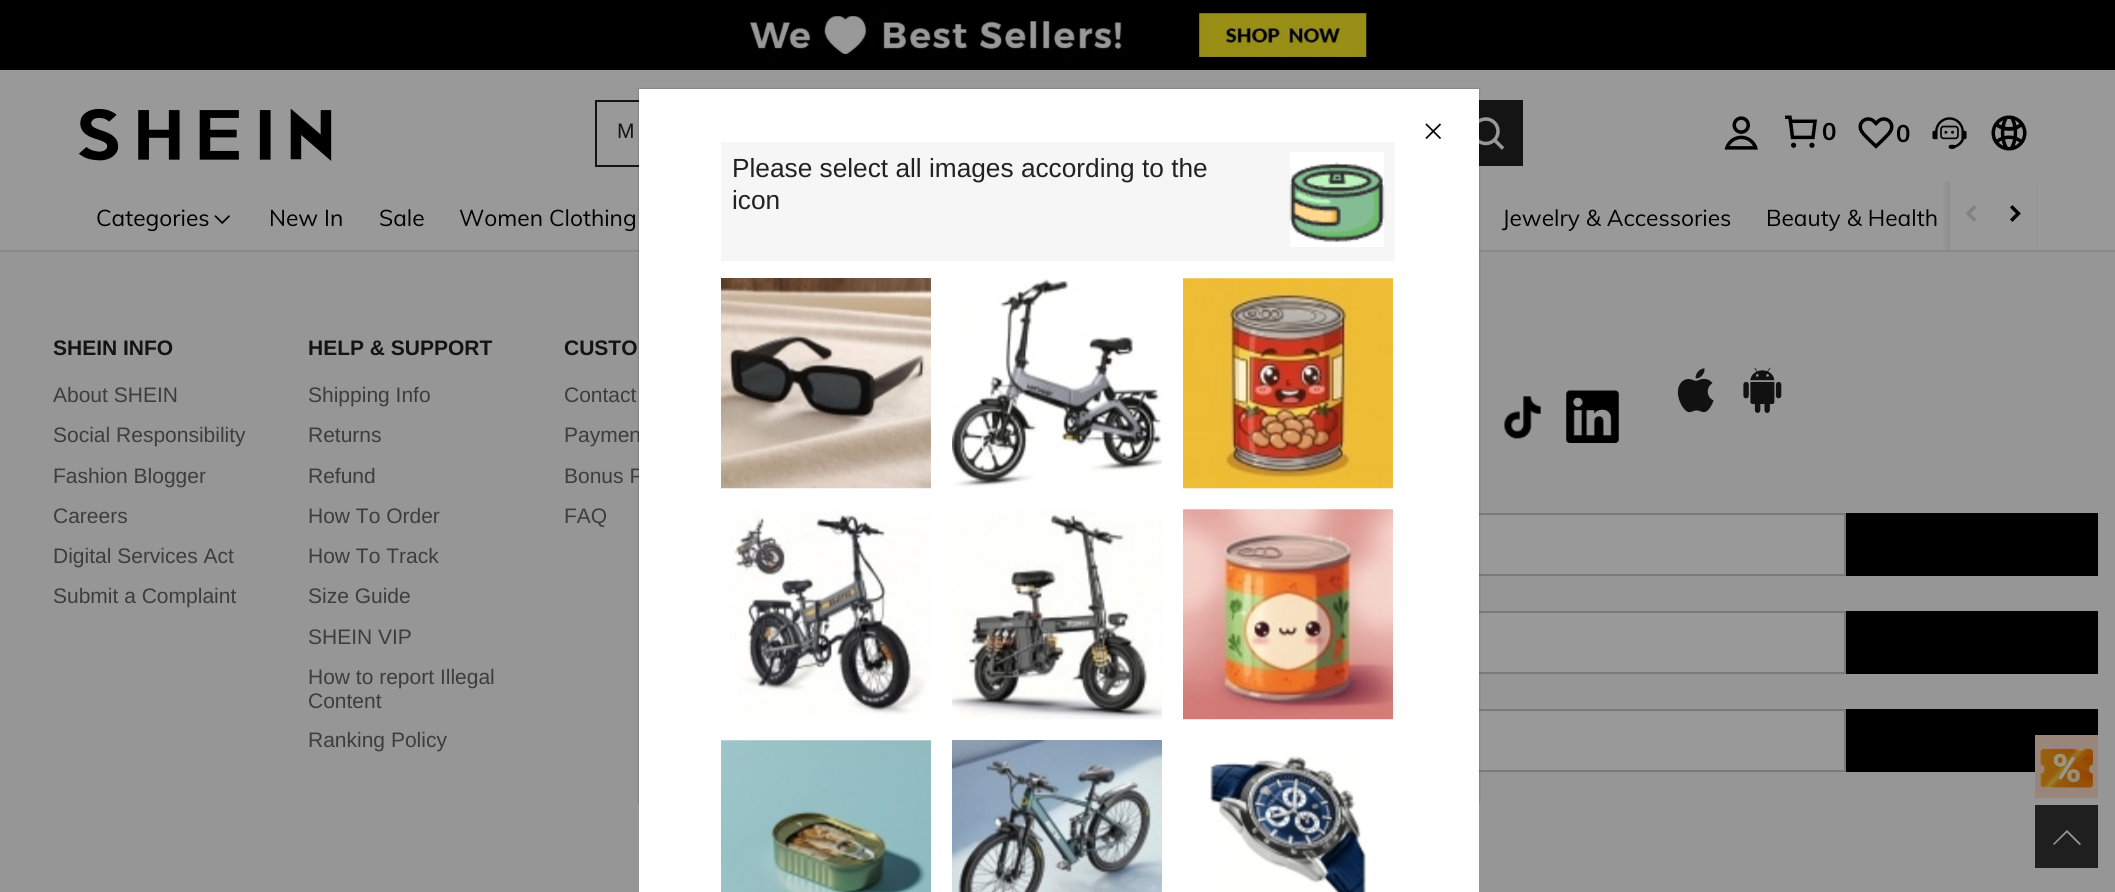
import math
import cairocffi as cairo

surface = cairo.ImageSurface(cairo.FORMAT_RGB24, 2115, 892)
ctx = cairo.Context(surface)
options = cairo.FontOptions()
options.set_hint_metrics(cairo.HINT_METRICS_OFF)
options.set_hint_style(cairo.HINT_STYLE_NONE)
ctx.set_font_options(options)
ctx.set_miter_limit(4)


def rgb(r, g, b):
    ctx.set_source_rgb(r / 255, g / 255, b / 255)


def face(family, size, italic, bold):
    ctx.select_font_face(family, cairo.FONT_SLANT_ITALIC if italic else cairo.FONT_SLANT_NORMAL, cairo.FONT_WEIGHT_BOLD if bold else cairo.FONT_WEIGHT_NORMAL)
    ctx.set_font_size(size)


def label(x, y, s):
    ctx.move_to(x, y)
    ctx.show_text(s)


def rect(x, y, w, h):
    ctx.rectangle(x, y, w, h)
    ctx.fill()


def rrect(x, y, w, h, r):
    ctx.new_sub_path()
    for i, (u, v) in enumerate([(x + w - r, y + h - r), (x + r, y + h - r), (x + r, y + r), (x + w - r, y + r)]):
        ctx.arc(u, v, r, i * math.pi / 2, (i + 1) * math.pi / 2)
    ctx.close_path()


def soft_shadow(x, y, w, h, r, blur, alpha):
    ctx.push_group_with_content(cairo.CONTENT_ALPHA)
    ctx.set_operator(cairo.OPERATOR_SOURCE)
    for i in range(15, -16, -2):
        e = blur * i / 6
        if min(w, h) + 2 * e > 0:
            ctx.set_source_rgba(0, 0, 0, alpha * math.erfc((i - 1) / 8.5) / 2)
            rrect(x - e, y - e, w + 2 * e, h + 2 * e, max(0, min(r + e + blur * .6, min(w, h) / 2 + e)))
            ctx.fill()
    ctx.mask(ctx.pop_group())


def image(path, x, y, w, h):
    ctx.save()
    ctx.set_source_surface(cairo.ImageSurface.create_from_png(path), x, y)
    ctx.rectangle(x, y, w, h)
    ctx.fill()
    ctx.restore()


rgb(153, 153, 153)
ctx.paint()
image('image0.png', 0, 0, 2115, 70)
image('image1.png', 79, 109, 253, 52)
rgb(20, 20, 20)
rect(595, 100, 44, 2)
rect(595, 165, 44, 2)
rect(595, 100, 2, 66)
face('Liberation Sans', 21, 0, 0)
label(617, 138, 'M')
rect(1479, 100, 44, 66)
image('image2.png', 1479, 117, 26, 33)
image('image3.png', 1724, 116, 34, 34)
image('image4.png', 1785, 115, 32, 33)
face('Muli', 24, 0, 1)
rgb(0, 0, 0)
label(1822, 140, '0')
image('image5.png', 1858, 117, 36, 32)
label(1896, 142, '0')
image('image6.png', 1932, 117, 35, 32)
image('image7.png', 1991, 115, 36, 36)
rgb(137, 137, 137)
rect(0, 250, 2115, 2)
face('Muli', 22.75, 0, 0)
rgb(0, 0, 0)
label(96, 226, 'Categories')
image('image8.png', 214, 215, 16, 9)
label(269, 226, 'New In')
label(379, 226, 'Sale')
label(459, 226, 'Women Clothing')
label(1502, 226, 'Jewelry & Accessories')
label(1766, 226, 'Beauty & Health')
rgb(150, 150, 150)
rect(0, 252, 2115, 640)
ctx.save()
ctx.rectangle(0, 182, 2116, 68)
ctx.clip()
rgb(0, 0, 0)
soft_shadow(1946, 182, 88, 68, 0, 2.5, 0.08)
ctx.restore()
rgb(153, 153, 153)
rect(1950, 182, 86, 68)
image('image9.png', 1965, 205, 12, 17)
image('image10.png', 2010, 205, 11, 17)
face('Liberation Sans', 21, 0, 1)
rgb(20, 20, 20)
label(53, 355, 'SHEIN INFO')
face('Liberation Sans', 21, 0, 0)
rgb(61, 61, 61)
label(53, 402, 'About SHEIN')
label(53, 442, 'Social Responsibility')
label(53, 483, 'Fashion Blogger')
label(53, 523, 'Careers')
label(53, 563, 'Digital Services Act')
label(53, 603, 'Submit a Complaint')
face('Liberation Sans', 21, 0, 1)
rgb(20, 20, 20)
label(308, 355, 'HELP & SUPPORT')
face('Liberation Sans', 21, 0, 0)
rgb(61, 61, 61)
label(308, 402, 'Shipping Info')
label(308, 442, 'Returns')
label(308, 483, 'Refund')
label(308, 523, 'How To Order')
label(308, 563, 'How To Track')
label(308, 603, 'Size Guide')
label(308, 644, 'SHEIN VIP')
label(308, 684, 'How to report Illegal')
label(308, 708, 'Content')
label(308, 747, 'Ranking Policy')
face('Liberation Sans', 21, 0, 1)
rgb(20, 20, 20)
label(564, 355, 'CUSTO')
face('Liberation Sans', 21, 0, 0)
rgb(61, 61, 61)
label(564, 402, 'Contact')
label(564, 442, 'Paymen')
label(564, 483, 'Bonus P')
label(564, 523, 'FAQ')
image('image11.png', 1504, 396, 37, 43)
image('image12.png', 1566, 390, 53, 53)
image('image13.png', 1677, 368, 37, 45)
image('image14.png', 1743, 367, 39, 46)
rgb(153, 153, 153)
rect(1479, 515, 365, 59)
ctx.rectangle(1077, 514, 768, 61)
rgb(122, 122, 122)
ctx.stroke()
rgb(0, 0, 0)
rect(1846, 513, 252, 63)
rgb(153, 153, 153)
rect(1479, 613, 365, 59)
ctx.rectangle(1217, 612, 628, 61)
rgb(122, 122, 122)
ctx.stroke()
rgb(0, 0, 0)
rect(1846, 611, 252, 63)
rgb(153, 153, 153)
rect(1479, 711, 365, 59)
ctx.rectangle(1217, 710, 628, 61)
rgb(122, 122, 122)
ctx.stroke()
rgb(0, 0, 0)
rect(1846, 709, 252, 63)
rgb(153, 133, 121)
rect(2035, 735, 63, 63)
image('image15.png', 2040, 748, 53, 40)
rgb(31, 31, 31)
rect(2035, 805, 63, 63)
rgb(153, 153, 153)
ctx.new_path()
ctx.move_to(2081, 844)
ctx.line_to(2067, 830)
ctx.line_to(2053, 844)
ctx.line_to(2054, 845)
ctx.line_to(2067, 832.5)
ctx.line_to(2079.5, 845)
ctx.close_path()
ctx.fill()
rgb(0, 0, 0)
soft_shadow(639, 89, 840, 714, 0, 1, 0.3)
rgb(255, 255, 255)
rect(639, 89, 840, 803)
image('image16.png', 1425, 123, 17, 17)
rgb(246, 246, 246)
rect(721, 142, 674, 119)
face('Liberation Sans', 26.25, 0, 0)
rgb(34, 34, 34)
label(732, 177, 'Please select all images according to the')
label(732, 209, 'icon')
rgb(255, 255, 255)
rect(1290, 152, 94, 95)
image('image17.png', 1289, 162, 96, 80)
image('image18.png', 721, 278, 210, 211)
image('image19.png', 952, 279, 210, 209)
image('image20.png', 1183, 278, 210, 211)
image('image21.png', 729, 510, 202, 206)
image('image22.png', 952, 509, 210, 211)
image('image23.png', 1183, 509, 210, 211)
image('image24.png', 721, 740, 210, 152)
image('image25.png', 952, 740, 210, 152)
image('image26.png', 1210, 755, 156, 137)
surface.write_to_png('render.png')
